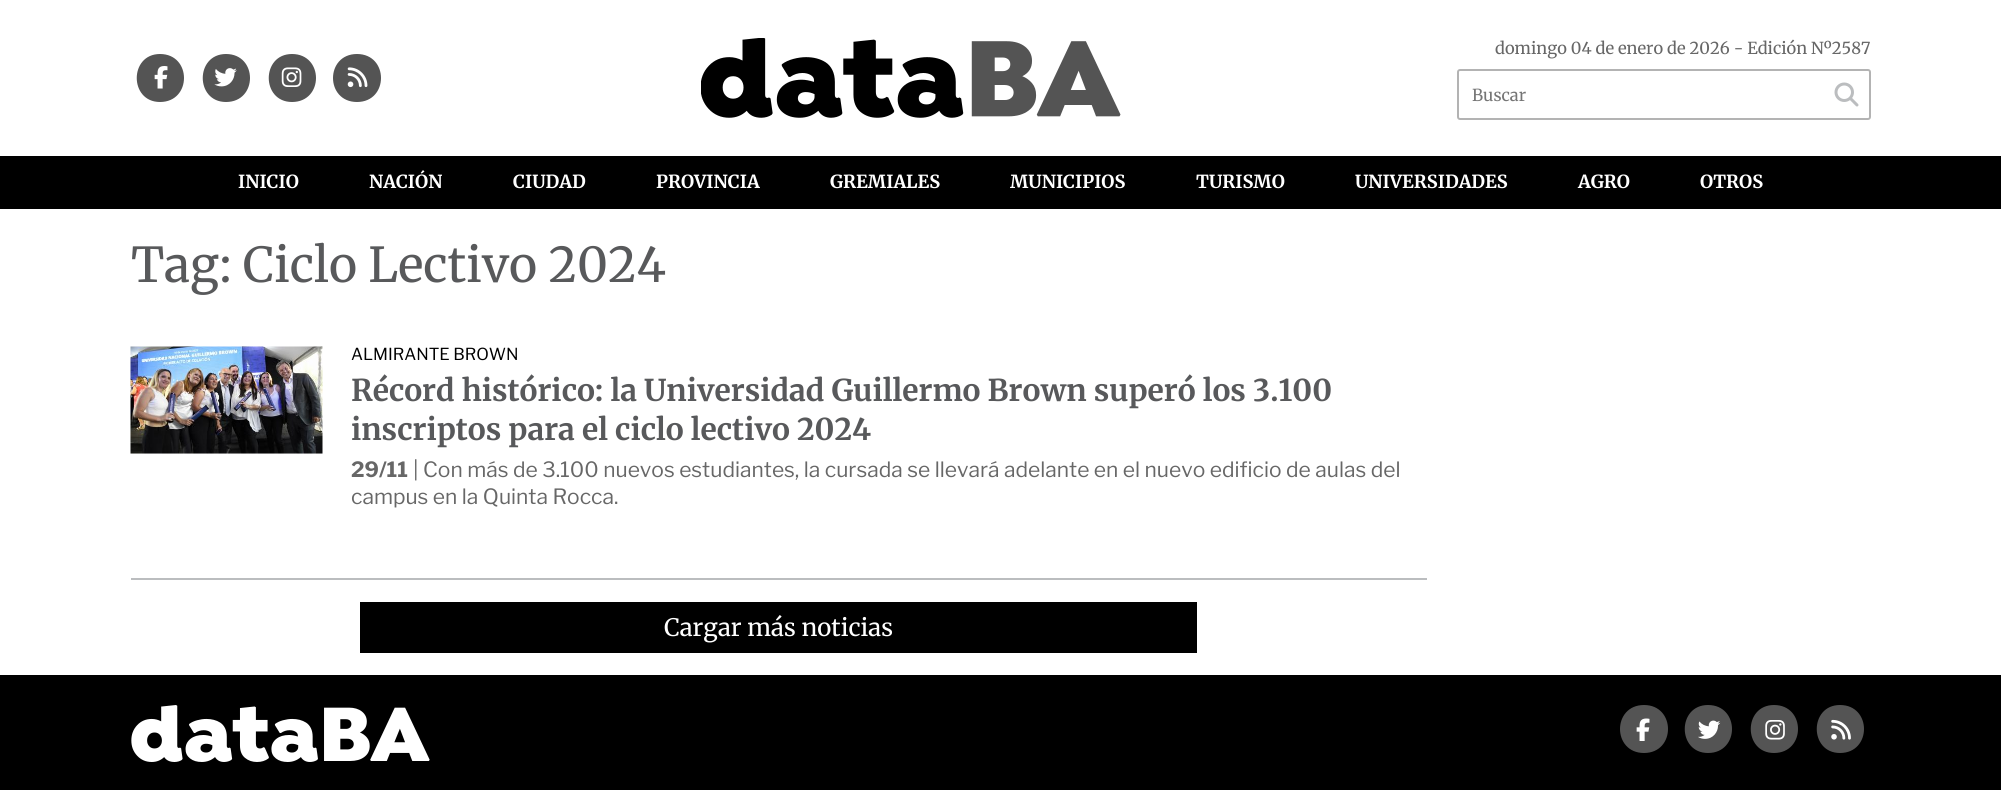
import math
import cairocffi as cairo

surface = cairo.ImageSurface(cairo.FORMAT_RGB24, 2001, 790)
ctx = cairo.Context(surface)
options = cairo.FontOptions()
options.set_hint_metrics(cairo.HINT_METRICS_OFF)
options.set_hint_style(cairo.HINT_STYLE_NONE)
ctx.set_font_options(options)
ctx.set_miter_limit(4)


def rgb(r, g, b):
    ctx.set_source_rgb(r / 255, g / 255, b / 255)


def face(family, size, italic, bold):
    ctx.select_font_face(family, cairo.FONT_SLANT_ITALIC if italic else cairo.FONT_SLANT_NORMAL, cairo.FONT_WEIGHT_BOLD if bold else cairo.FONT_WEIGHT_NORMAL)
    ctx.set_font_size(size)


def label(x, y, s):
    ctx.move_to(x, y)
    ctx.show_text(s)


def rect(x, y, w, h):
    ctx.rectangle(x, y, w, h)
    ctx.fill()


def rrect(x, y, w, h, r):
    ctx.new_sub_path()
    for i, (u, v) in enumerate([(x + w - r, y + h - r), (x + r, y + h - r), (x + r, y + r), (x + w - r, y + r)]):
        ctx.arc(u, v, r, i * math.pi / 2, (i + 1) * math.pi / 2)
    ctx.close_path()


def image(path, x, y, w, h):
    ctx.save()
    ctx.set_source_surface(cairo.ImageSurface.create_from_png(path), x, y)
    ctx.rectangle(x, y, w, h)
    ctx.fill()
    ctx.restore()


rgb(255, 255, 255)
ctx.paint()
rgb(84, 84, 84)
ctx.new_path()
ctx.move_to(160, 102)
ctx.curve_to(192, 102, 192, 54, 160, 54)
ctx.curve_to(129, 54, 129, 102, 160, 102)
ctx.close_path()
ctx.fill()
image('image0.png', 154, 66, 14, 23)
ctx.new_path()
ctx.move_to(226, 102)
ctx.curve_to(258, 102, 258, 54, 226, 54)
ctx.curve_to(195, 54, 195, 102, 226, 102)
ctx.close_path()
ctx.fill()
image('image1.png', 214, 68, 23, 19)
ctx.new_path()
ctx.move_to(292, 102)
ctx.curve_to(324, 102, 324, 54, 292, 54)
ctx.curve_to(261, 54, 261, 102, 292, 102)
ctx.close_path()
ctx.fill()
image('image2.png', 281, 67, 21, 20)
ctx.new_path()
ctx.move_to(357, 102)
ctx.curve_to(389, 102, 389, 54, 357, 54)
ctx.curve_to(325, 54, 325, 102, 357, 102)
ctx.close_path()
ctx.fill()
image('image3.png', 347, 67, 21, 21)
image('image4.png', 701, 38, 420, 80)
face('Merriweather', 16.5, 0, 0)
rgb(103, 103, 103)
label(1495, 54, 'domingo 04 de enero de 2026 - Edición Nº2587')
rrect(1458, 70, 412, 49, 2)
rgb(179, 179, 179)
ctx.stroke()
rgb(117, 117, 117)
label(1472, 101, 'Buscar')
image('image5.png', 1834, 82, 25, 25)
rgb(0, 0, 0)
rect(0, 156, 2001, 53)
face('Merriweather', 18, 0, 1)
rgb(255, 255, 255)
label(238, 188, 'INICIO')
label(369, 188, 'NACIÓN')
label(513, 188, 'CIUDAD')
label(656, 188, 'PROVINCIA')
label(830, 188, 'GREMIALES')
label(1010, 188, 'MUNICIPIOS')
label(1196, 188, 'TURISMO')
label(1355, 188, 'UNIVERSIDADES')
label(1578, 188, 'AGRO')
label(1700, 188, 'OTROS')
face('Merriweather', 48, 0, 0)
rgb(88, 89, 91)
label(131, 282, 'Tag: Ciclo Lectivo 2024')
rgb(187, 189, 191)
rect(131, 578, 1296, 2)
image('image6.png', 130, 346, 193, 108)
face('Libre Franklin', 16.5, 0, 0)
rgb(0, 0, 0)
label(351, 360, 'ALMIRANTE BROWN')
face('Merriweather', 30, 0, 1)
rgb(88, 89, 91)
label(351, 401, 'Récord histórico: la Universidad Guillermo Brown superó los 3.100')
label(351, 440, 'inscriptos para el ciclo lectivo 2024')
face('Libre Franklin', 21, 0, 1)
rgb(103, 103, 103)
label(351, 477, '29/11')
face('Libre Franklin', 21, 0, 0)
label(413, 477, '| Con más de 3.100 nuevos estudiantes, la cursada se llevará adelante en el nuevo edificio de aulas del')
label(351, 504, 'campus en la Quinta Rocca.')
rgb(0, 0, 0)
rect(360, 602, 837, 51)
face('Merriweather', 24, 0, 0)
rgb(255, 255, 255)
label(664, 636, 'Cargar más noticias')
rgb(0, 0, 0)
rect(0, 675, 2001, 115)
image('image7.png', 131, 705, 299, 57)
rgb(84, 84, 84)
ctx.new_path()
ctx.move_to(1644, 753)
ctx.curve_to(1676, 753, 1676, 705, 1644, 705)
ctx.curve_to(1612, 705, 1612, 753, 1644, 753)
ctx.close_path()
ctx.fill()
image('image8.png', 1636, 718, 14, 23)
ctx.new_path()
ctx.move_to(1708, 753)
ctx.curve_to(1740, 753, 1740, 705, 1708, 705)
ctx.curve_to(1677, 705, 1677, 753, 1708, 753)
ctx.close_path()
ctx.fill()
image('image9.png', 1698, 720, 23, 19)
ctx.new_path()
ctx.move_to(1774, 753)
ctx.curve_to(1806, 753, 1806, 705, 1774, 705)
ctx.curve_to(1743, 705, 1743, 753, 1774, 753)
ctx.close_path()
ctx.fill()
image('image10.png', 1765, 720, 20, 20)
ctx.new_path()
ctx.move_to(1840, 753)
ctx.curve_to(1872, 753, 1872, 705, 1840, 705)
ctx.curve_to(1809, 705, 1809, 753, 1840, 753)
ctx.close_path()
ctx.fill()
image('image11.png', 1831, 719, 20, 21)
surface.write_to_png('render.png')
